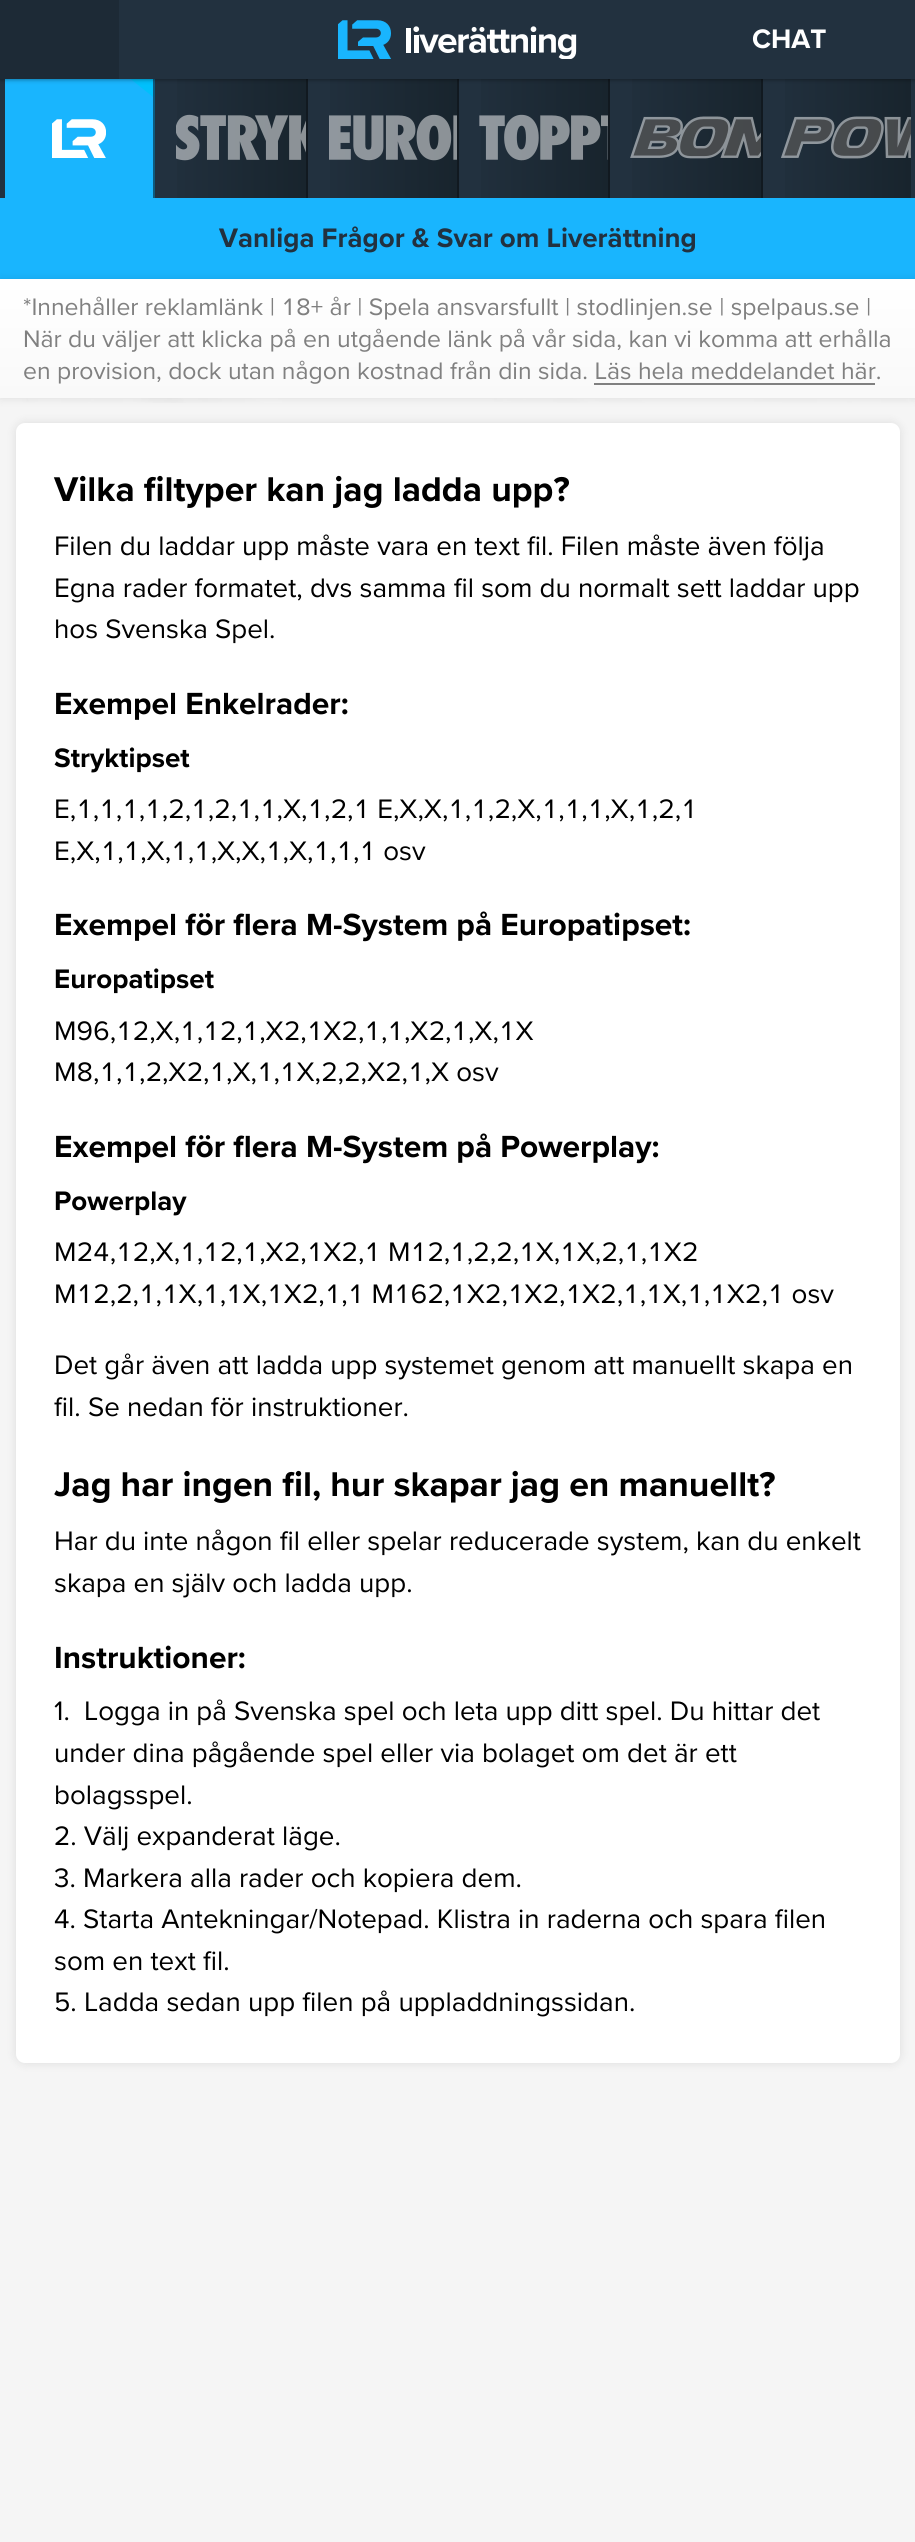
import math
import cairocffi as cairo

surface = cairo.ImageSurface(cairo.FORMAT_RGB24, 915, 2542)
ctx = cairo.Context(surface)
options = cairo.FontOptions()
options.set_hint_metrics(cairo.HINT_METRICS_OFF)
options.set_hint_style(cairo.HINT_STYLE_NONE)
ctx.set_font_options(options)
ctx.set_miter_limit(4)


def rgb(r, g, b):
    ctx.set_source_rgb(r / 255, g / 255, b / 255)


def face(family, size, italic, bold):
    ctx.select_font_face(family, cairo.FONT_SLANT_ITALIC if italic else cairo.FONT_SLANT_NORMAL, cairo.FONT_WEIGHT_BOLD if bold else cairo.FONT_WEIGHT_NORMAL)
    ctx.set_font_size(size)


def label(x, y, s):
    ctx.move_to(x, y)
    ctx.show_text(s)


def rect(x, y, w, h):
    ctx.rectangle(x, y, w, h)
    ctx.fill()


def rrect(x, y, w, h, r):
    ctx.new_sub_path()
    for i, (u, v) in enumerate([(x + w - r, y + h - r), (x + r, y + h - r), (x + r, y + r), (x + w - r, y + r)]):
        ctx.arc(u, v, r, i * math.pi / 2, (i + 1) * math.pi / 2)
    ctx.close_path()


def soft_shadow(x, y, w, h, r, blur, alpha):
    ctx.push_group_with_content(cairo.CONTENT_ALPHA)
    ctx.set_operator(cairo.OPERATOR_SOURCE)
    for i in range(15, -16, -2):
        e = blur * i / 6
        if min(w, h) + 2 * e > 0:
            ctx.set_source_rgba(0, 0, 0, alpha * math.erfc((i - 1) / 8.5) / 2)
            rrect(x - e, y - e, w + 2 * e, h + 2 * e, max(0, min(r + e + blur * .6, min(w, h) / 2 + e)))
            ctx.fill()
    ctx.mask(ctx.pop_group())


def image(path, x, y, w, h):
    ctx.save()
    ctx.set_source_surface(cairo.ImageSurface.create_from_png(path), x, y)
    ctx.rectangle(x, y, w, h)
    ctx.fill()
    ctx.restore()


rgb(245, 245, 245)
ctx.paint()
image('image0.png', 0, 398, 915, 5)
rgb(34, 49, 63)
rect(0, 79, 915, 119)
rgb(25, 181, 254)
rect(5, 79, 148, 119)
rgb(13, 91, 127)
rect(153, 79, 2, 119)
rgb(0, 192, 252)
ctx.new_path()
ctx.move_to(130.5, 79)
ctx.line_to(153, 79)
ctx.line_to(153, 97)
ctx.close_path()
ctx.fill()
gradient = cairo.LinearGradient(155, 138, 306, 138)
gradient.add_color_stop_rgba(0.01, 0.133, 0.192, 0.247, 1)
gradient.add_color_stop_rgba(1, 0.094, 0.141, 0.176, 1)
ctx.set_source(gradient)
rect(177, 79, 129, 119)
rgb(17, 25, 32)
rect(306, 79, 2, 119)
gradient = cairo.LinearGradient(308, 138, 457, 138)
gradient.add_color_stop_rgba(0.01, 0.133, 0.192, 0.247, 1)
gradient.add_color_stop_rgba(1, 0.094, 0.141, 0.176, 1)
ctx.set_source(gradient)
rect(330, 79, 127, 119)
rgb(17, 25, 32)
rect(457, 79, 2, 119)
gradient = cairo.LinearGradient(459, 138, 608, 138)
gradient.add_color_stop_rgba(0.01, 0.133, 0.192, 0.247, 1)
gradient.add_color_stop_rgba(1, 0.094, 0.141, 0.176, 1)
ctx.set_source(gradient)
rect(481, 79, 127, 119)
rgb(17, 25, 32)
rect(608, 79, 2, 119)
gradient = cairo.LinearGradient(610, 138, 761, 138)
gradient.add_color_stop_rgba(0.01, 0.133, 0.192, 0.247, 1)
gradient.add_color_stop_rgba(1, 0.094, 0.141, 0.176, 1)
ctx.set_source(gradient)
rect(632, 79, 129, 119)
rgb(17, 25, 32)
rect(761, 79, 2, 119)
gradient = cairo.LinearGradient(763, 138, 911, 138)
gradient.add_color_stop_rgba(0.01, 0.133, 0.192, 0.247, 1)
gradient.add_color_stop_rgba(1, 0.094, 0.141, 0.176, 1)
ctx.set_source(gradient)
rect(785, 79, 126, 119)
rgb(0, 0, 0)
soft_shadow(0, 0, 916, 79, 0, 2.5, 0.5)
rgb(34, 49, 63)
rect(119, 0, 796, 79)
rgb(29, 42, 54)
rect(0, 0, 119, 79)
image('image1.png', 338, 20, 239, 39)
face('Proxima Nova', 27.75, 0, 1)
rgb(255, 255, 255)
label(752, 48, 'CHAT')
image('image2.png', 52, 119, 54, 39)
image('image3.png', 176, 114, 130, 47)
image('image4.png', 329, 114, 128, 47)
image('image5.png', 479, 114, 129, 47)
image('image6.png', 630, 116, 131, 43)
image('image7.png', 781, 116, 130, 43)
rgb(25, 181, 254)
rect(0, 198, 915, 81)
rgb(34, 49, 63)
label(219, 247, 'Vanliga Frågor & Svar om Liverättning')
rgb(0, 0, 0)
soft_shadow(0, 279, 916, 119, 0, 5, 0.1)
gradient = cairo.LinearGradient(458, 279, 458, 398)
gradient.add_color_stop_rgba(0.01, 1, 1, 1, 1)
gradient.add_color_stop_rgba(1, 0.976, 0.976, 0.976, 1)
ctx.set_source(gradient)
rect(0, 279, 915, 119)
face('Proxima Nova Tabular', 24.75, 0, 0)
rgb(128, 128, 128)
label(23, 315, '*Innehåller reklamlänk | 18+ år | Spela ansvarsfullt | stodlinjen.se | spelpaus.se |')
face('Proxima Nova', 24.75, 0, 0)
label(23, 347, 'När du väljer att klicka på en utgående länk på vår sida, kan vi komma att erhålla')
label(23, 379, 'en provision, dock utan någon kostnad från din sida. Läs hela meddelandet här.')
rect(594, 383, 281, 2)
rgb(0, 0, 0)
soft_shadow(16, 423, 884, 1640, 9, 5, 0.1)
rgb(255, 255, 255)
rrect(16, 423, 884, 1640, 9)
ctx.fill()
face('Proxima Nova', 35.6, 0, 1)
rgb(0, 0, 0)
label(54, 501, 'Vilka filtyper kan jag ladda upp?')
face('Proxima Nova', 27.75, 0, 0)
label(54, 555, 'Filen du laddar upp måste vara en text fil. Filen måste även följa')
label(54, 597, 'Egna rader formatet, dvs samma fil som du normalt sett laddar upp')
label(54, 638, 'hos Svenska Spel.')
face('Proxima Nova', 31.7, 0, 1)
label(54, 714, 'Exempel Enkelrader:')
face('Proxima Nova', 27.75, 0, 1)
label(54, 767, 'Stryktipset')
face('Proxima Nova Tabular', 27.75, 0, 0)
label(54, 818, 'E,1,1,1,1,2,1,2,1,1,X,1,2,1 E,X,X,1,1,2,X,1,1,1,X,1,2,1')
label(54, 860, 'E,X,1,1,X,1,1,X,X,1,X,1,1,1 osv')
face('Proxima Nova', 31.7, 0, 1)
label(54, 935, 'Exempel för flera M-System på Europatipset:')
face('Proxima Nova', 27.75, 0, 1)
label(54, 988, 'Europatipset')
face('Proxima Nova Tabular', 27.75, 0, 0)
label(54, 1040, 'M96,12,X,1,12,1,X2,1X2,1,1,X2,1,X,1X')
label(54, 1081, 'M8,1,1,2,X2,1,X,1,1X,2,2,X2,1,X osv')
face('Proxima Nova', 31.7, 0, 1)
label(54, 1157, 'Exempel för flera M-System på Powerplay:')
face('Proxima Nova', 27.75, 0, 1)
label(54, 1210, 'Powerplay')
face('Proxima Nova Tabular', 27.75, 0, 0)
label(54, 1261, 'M24,12,X,1,12,1,X2,1X2,1 M12,1,2,2,1X,1X,2,1,1X2')
label(54, 1303, 'M12,2,1,1X,1,1X,1X2,1,1 M162,1X2,1X2,1X2,1,1X,1,1X2,1 osv')
face('Proxima Nova', 27.75, 0, 0)
label(54, 1374, 'Det går även att ladda upp systemet genom att manuellt skapa en')
label(54, 1416, 'fil. Se nedan för instruktioner.')
face('Proxima Nova', 35.6, 0, 1)
label(54, 1496, 'Jag har ingen fil, hur skapar jag en manuellt?')
face('Proxima Nova', 27.75, 0, 0)
label(54, 1550, 'Har du inte någon fil eller spelar reducerade system, kan du enkelt')
label(54, 1592, 'skapa en själv och ladda upp.')
face('Proxima Nova', 31.7, 0, 1)
label(54, 1668, 'Instruktioner:')
face('Proxima Nova', 27.75, 0, 0)
label(54, 1720, '1.')
label(84, 1720, 'Logga in på Svenska spel och leta upp ditt spel. Du hittar det')
label(54, 1762, 'under dina pågående spel eller via bolaget om det är ett')
label(54, 1804, 'bolagsspel.')
label(54, 1845, '2. Välj expanderat läge.')
label(54, 1887, '3. Markera alla rader och kopiera dem.')
label(54, 1928, '4. Starta Antekningar/Notepad. Klistra in raderna och spara filen')
label(54, 1970, 'som en text fil.')
label(54, 2011, '5. Ladda sedan upp filen på uppladdningssidan.')
surface.write_to_png('render.png')
